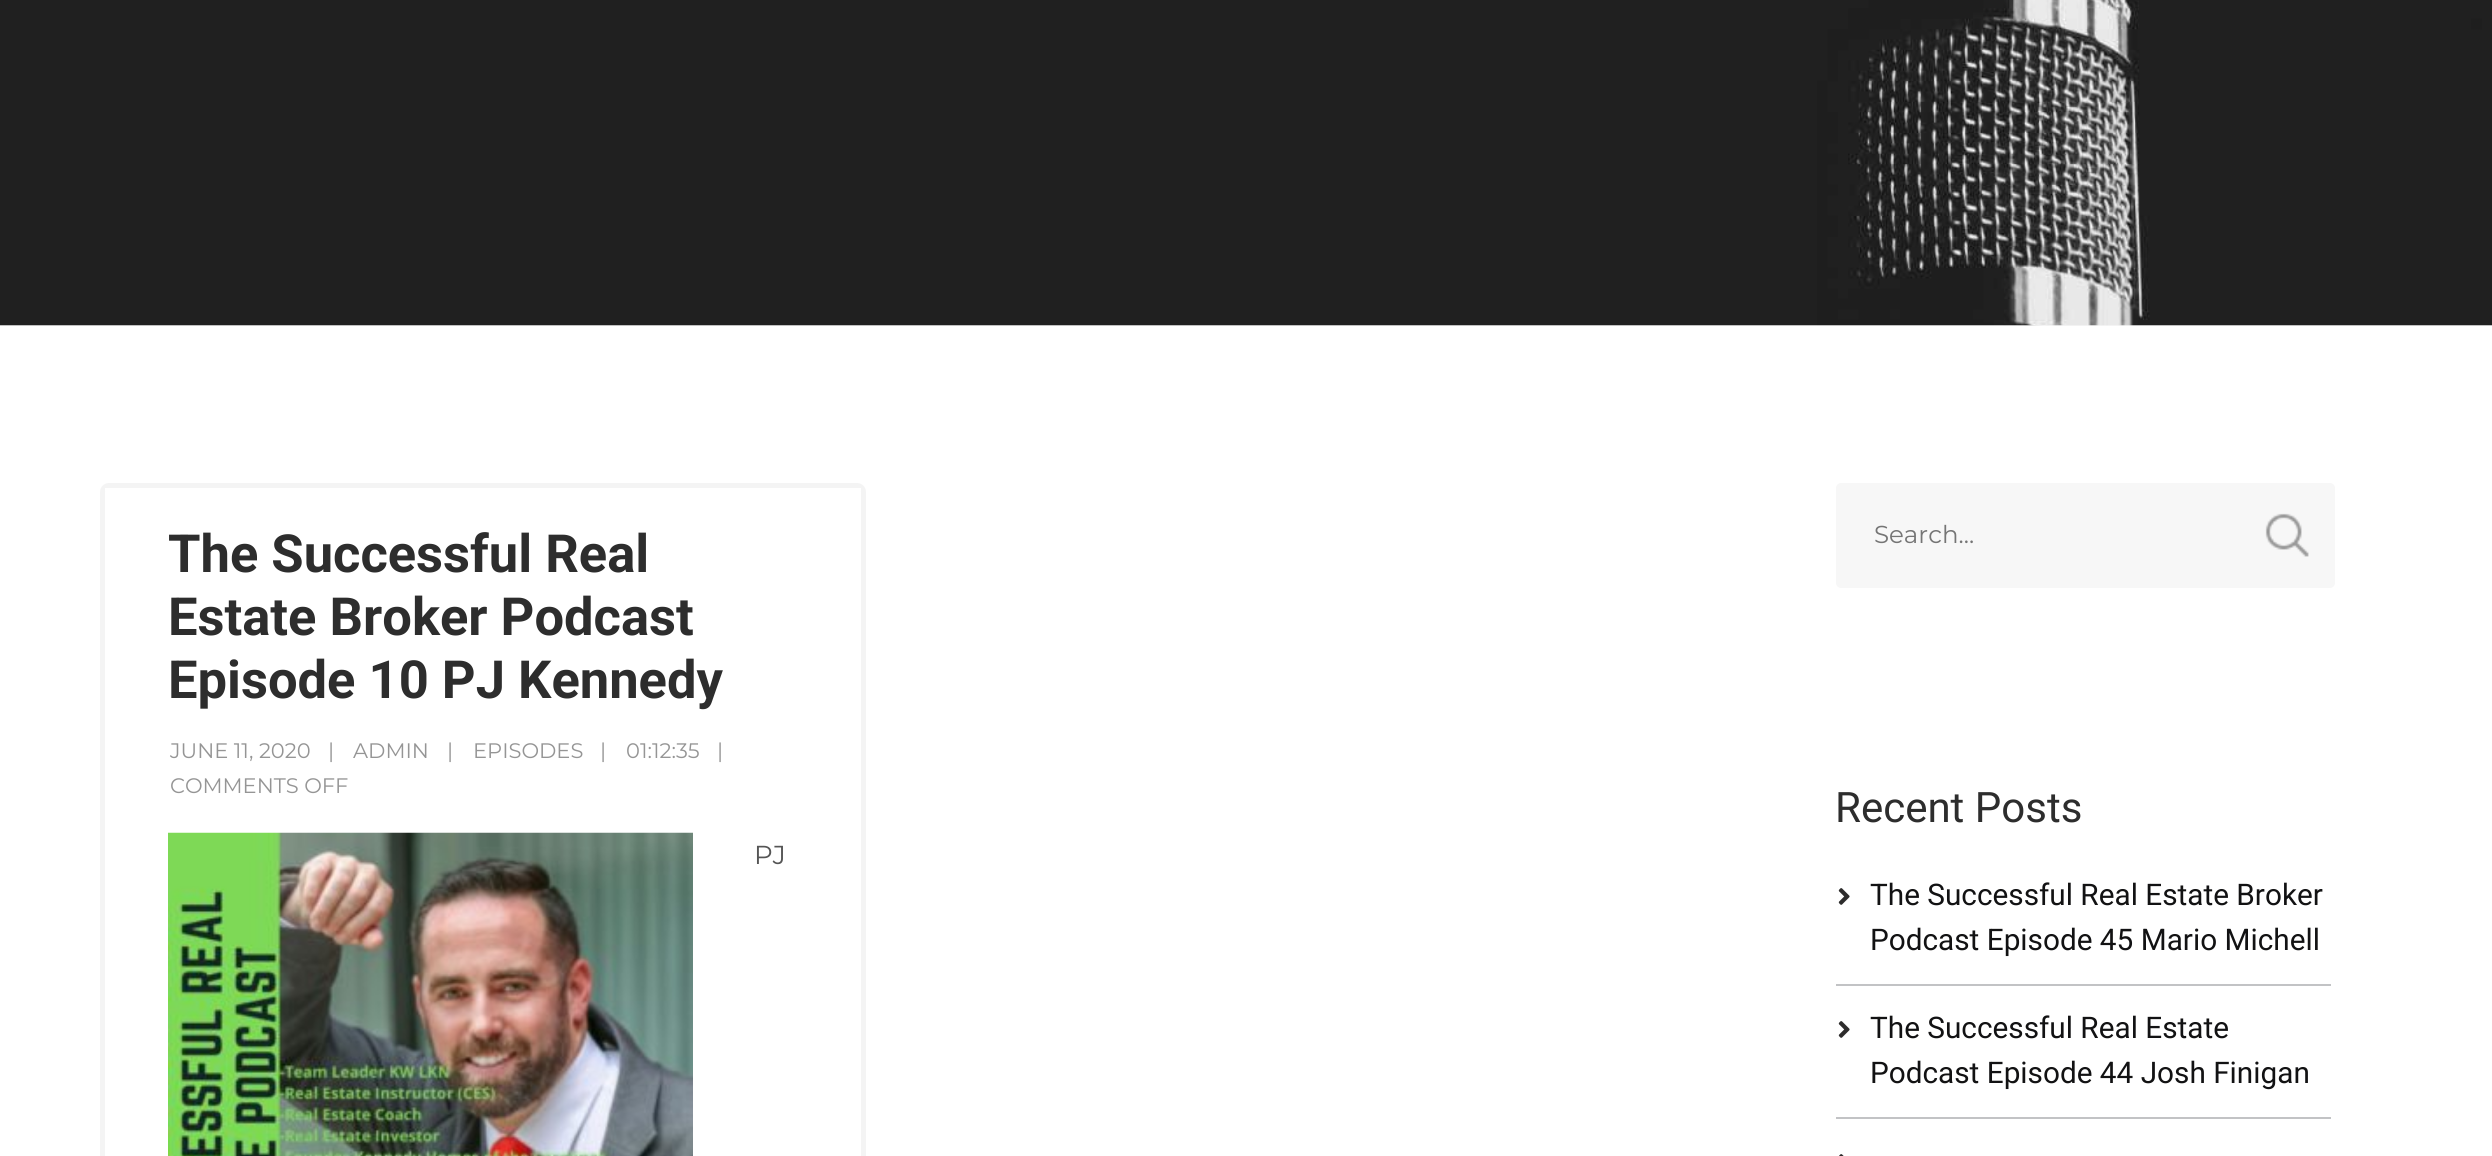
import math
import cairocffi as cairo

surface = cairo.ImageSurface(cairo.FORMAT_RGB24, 2492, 1156)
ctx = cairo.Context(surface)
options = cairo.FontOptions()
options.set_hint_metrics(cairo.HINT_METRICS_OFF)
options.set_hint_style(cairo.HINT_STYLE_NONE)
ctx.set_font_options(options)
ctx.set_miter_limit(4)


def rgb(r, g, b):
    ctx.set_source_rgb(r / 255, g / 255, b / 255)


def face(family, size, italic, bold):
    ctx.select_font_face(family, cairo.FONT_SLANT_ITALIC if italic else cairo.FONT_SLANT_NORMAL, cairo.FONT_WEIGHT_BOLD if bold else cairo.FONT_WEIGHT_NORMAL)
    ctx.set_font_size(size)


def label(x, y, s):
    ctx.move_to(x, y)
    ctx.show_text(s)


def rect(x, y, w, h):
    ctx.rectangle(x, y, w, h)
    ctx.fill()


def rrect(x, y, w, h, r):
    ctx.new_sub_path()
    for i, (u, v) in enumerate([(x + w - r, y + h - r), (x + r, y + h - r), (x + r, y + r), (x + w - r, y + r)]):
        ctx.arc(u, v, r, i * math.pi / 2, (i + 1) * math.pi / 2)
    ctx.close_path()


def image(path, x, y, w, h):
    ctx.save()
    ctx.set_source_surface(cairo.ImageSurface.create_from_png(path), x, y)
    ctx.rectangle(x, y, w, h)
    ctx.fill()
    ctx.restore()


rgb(255, 255, 255)
ctx.paint()
rgb(245, 245, 245)
rect(0, 325, 2492, 1)
image('image0.png', 0, 0, 2492, 326)
rrect(102.5, 485.5, 761, 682, 6.5)
rgb(244, 244, 244)
ctx.set_line_width(5)
ctx.stroke()
rgb(255, 255, 255)
rect(105, 488, 756, 3)
face('Roboto', 52.5, 0, 1)
rgb(45, 45, 45)
label(168, 572, 'The Successful Real')
label(168, 635, 'Estate Broker Podcast')
label(168, 698, 'Episode 10 PJ Kennedy')
face('Montserrat', 21, 0, 0)
rgb(149, 149, 149)
label(170, 758, 'JUNE 11, 2020')
label(328, 758, '|')
label(353, 758, 'ADMIN')
label(447, 758, '|')
label(473, 758, 'EPISODES')
label(600, 758, '|')
label(626, 758, '01:12:35')
label(717, 758, '|')
label(170, 793, 'COMMENTS OFF')
image('image1.png', 168, 832, 525, 324)
face('Montserrat', 26, 0, 0)
rgb(85, 85, 85)
label(754, 864, 'PJ')
rgb(247, 247, 247)
rrect(1836, 483, 499, 105, 5)
ctx.fill()
image('image2.png', 2265, 513, 44, 44)
face('Montserrat', 24.5, 0, 0)
rgb(117, 117, 117)
label(1874, 543, 'Search...')
face('Roboto', 42, 0, 0)
rgb(45, 45, 45)
label(1835, 822, 'Recent Posts')
rgb(194, 195, 197)
rect(1836, 984, 495, 2)
image('image3.png', 1838, 888, 12, 17)
face('Roboto', 29.75, 0, 0)
rgb(18, 18, 19)
label(1870, 905, 'The Successful Real Estate Broker')
label(1870, 950, 'Podcast Episode 45 Mario Michell')
rgb(194, 195, 197)
rect(1836, 1117, 495, 2)
image('image3.png', 1838, 1021, 12, 17)
rgb(18, 18, 19)
label(1870, 1038, 'The Successful Real Estate')
label(1870, 1083, 'Podcast Episode 44 Josh Finigan')
image('image4.png', 1839, 1154, 5, 2)
surface.write_to_png('render.png')
